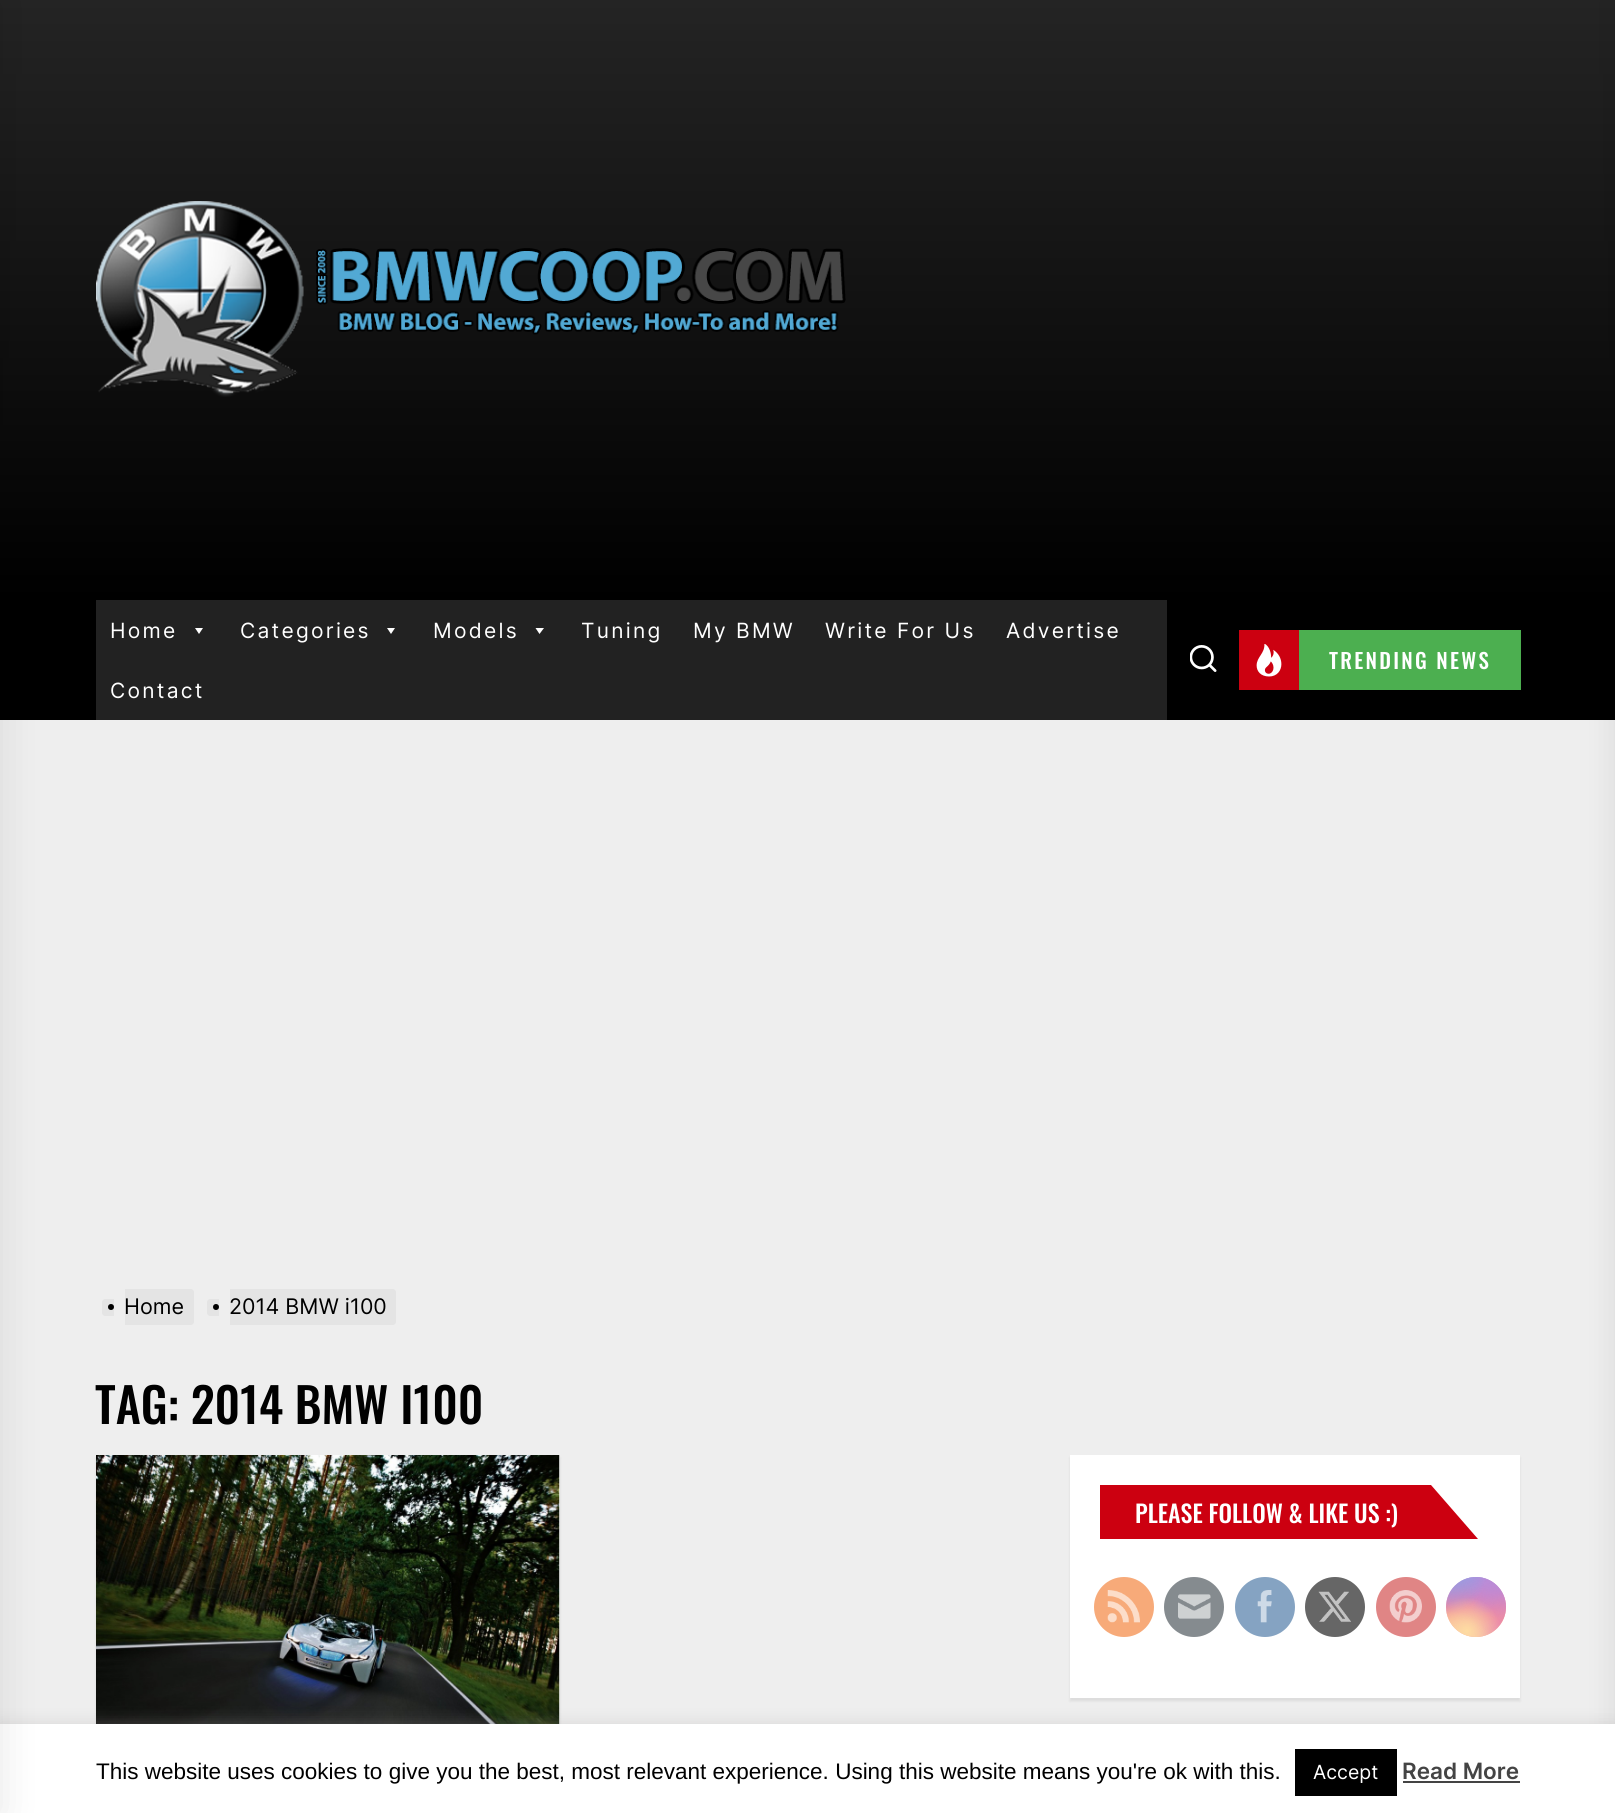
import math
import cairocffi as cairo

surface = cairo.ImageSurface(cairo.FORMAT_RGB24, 1615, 1813)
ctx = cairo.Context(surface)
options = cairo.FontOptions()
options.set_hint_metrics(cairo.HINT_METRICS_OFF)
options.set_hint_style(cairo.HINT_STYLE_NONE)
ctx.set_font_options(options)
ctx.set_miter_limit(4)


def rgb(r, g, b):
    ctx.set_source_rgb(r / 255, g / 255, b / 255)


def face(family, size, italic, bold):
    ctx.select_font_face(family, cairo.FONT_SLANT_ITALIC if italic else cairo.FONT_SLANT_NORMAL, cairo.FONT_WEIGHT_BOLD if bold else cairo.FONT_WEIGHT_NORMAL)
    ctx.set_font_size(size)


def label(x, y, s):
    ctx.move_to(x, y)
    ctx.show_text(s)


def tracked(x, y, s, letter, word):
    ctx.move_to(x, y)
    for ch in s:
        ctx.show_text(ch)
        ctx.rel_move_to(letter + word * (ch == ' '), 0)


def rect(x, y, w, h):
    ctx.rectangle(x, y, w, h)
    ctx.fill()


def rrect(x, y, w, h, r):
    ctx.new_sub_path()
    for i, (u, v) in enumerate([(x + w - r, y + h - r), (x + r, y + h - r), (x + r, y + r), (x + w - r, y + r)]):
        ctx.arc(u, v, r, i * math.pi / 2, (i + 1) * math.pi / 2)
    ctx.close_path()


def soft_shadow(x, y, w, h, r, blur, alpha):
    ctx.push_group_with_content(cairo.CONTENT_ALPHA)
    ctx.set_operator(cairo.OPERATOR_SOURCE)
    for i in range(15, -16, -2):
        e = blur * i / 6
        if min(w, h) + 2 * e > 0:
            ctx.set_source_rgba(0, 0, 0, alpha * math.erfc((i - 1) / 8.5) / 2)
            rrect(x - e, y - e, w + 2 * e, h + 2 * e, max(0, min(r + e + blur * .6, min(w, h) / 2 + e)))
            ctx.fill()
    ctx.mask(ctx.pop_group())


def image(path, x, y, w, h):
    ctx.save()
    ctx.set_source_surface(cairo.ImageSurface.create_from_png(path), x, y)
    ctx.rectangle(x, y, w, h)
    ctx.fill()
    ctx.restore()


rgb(238, 238, 238)
ctx.paint()
gradient = cairo.LinearGradient(808, 0, 808, 600)
gradient.add_color_stop_rgba(0, 0.141, 0.141, 0.141, 1)
gradient.add_color_stop_rgba(1, 0, 0, 0, 1)
ctx.set_source(gradient)
rect(0, 0, 1615, 600)
rgb(0, 0, 0)
rect(0, 600, 1615, 120)
rgb(0, 0, 0)
soft_shadow(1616, 0, 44, 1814, 0, 15, 0.1)
soft_shadow(96, 1458, 464, 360, 0, 1.5, 0.08)
rgb(255, 255, 255)
rect(559, 1455, 1, 269)
image('image3.png', 96, 1455, 464, 269)
rgb(172, 171, 171)
soft_shadow(0, 1722, 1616, 90, 0, 7.5, 0.3)
rgb(255, 255, 255)
rect(0, 1724, 1615, 89)
rgb(0, 0, 0)
soft_shadow(-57, 0, 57, 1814, 0, 19, 0.1)
image('image0.png', 96, 201, 750, 196)
rgb(34, 34, 34)
rect(96, 600, 1071, 120)
face('Inter', 21, 0, 0)
rgb(255, 255, 255)
tracked(110, 638, 'Home', 2.25, 0)
ctx.new_path()
ctx.move_to(203, 628)
ctx.line_to(199, 634)
ctx.line_to(195, 628)
ctx.close_path()
ctx.fill()
tracked(240, 638, 'Categories', 2.25, 0)
ctx.new_path()
ctx.move_to(395, 628)
ctx.line_to(391, 634)
ctx.line_to(387, 628)
ctx.close_path()
ctx.fill()
tracked(433, 638, 'Models', 2.25, 0)
ctx.new_path()
ctx.move_to(544, 628)
ctx.line_to(539.5, 634)
ctx.line_to(535.5, 628)
ctx.close_path()
ctx.fill()
tracked(581, 638, 'Tuning', 2.25, 0)
tracked(693, 638, 'My BMW', 2.25, 0)
tracked(825, 638, 'Write For Us', 2.25, 0)
tracked(1006, 638, 'Advertise', 2.25, 0)
tracked(110, 698, 'Contact', 2.25, 0)
image('image1.png', 1190, 645, 27, 27)
rgb(204, 0, 16)
rect(1239, 630, 60, 60)
image('image2.png', 1256, 644, 26, 33)
rgb(76, 175, 80)
rect(1299, 630, 222, 60)
face('Oswald Medium', 21, 0, 0)
rgb(255, 255, 255)
tracked(1329, 669, 'TRENDING NEWS', 2.25, 0)
rgb(228, 228, 228)
ctx.new_path()
ctx.move_to(105, 1299)
ctx.line_to(114, 1299)
ctx.line_to(114, 1316)
ctx.line_to(105, 1316)
ctx.curve_to(103.5, 1316, 102, 1314.5, 102, 1313)
ctx.line_to(102, 1302)
ctx.curve_to(102, 1300.5, 103.5, 1299, 105, 1299)
ctx.close_path()
ctx.fill()
ctx.new_path()
ctx.move_to(125, 1289)
ctx.line_to(191, 1289)
ctx.curve_to(192.5, 1289, 194, 1290.5, 194, 1292)
ctx.line_to(194, 1322)
ctx.curve_to(194, 1323.5, 192.5, 1325, 191, 1325)
ctx.line_to(125, 1325)
ctx.close_path()
ctx.fill()
rgb(0, 0, 0)
ctx.arc(111, 1307, 3, 0, 2 * math.pi)
ctx.fill()
face('Inter', 21.5, 0, 0)
label(124, 1314, 'Home')
rgb(228, 228, 228)
ctx.new_path()
ctx.move_to(210, 1299)
ctx.line_to(219, 1299)
ctx.line_to(219, 1316)
ctx.line_to(210, 1316)
ctx.curve_to(208.5, 1316, 207, 1314.5, 207, 1313)
ctx.line_to(207, 1302)
ctx.curve_to(207, 1300.5, 208.5, 1299, 210, 1299)
ctx.close_path()
ctx.fill()
ctx.new_path()
ctx.move_to(230, 1289)
ctx.line_to(393, 1289)
ctx.curve_to(394.5, 1289, 396, 1290.5, 396, 1292)
ctx.line_to(396, 1322)
ctx.curve_to(396, 1323.5, 394.5, 1325, 393, 1325)
ctx.line_to(230, 1325)
ctx.close_path()
ctx.fill()
rgb(0, 0, 0)
ctx.arc(216, 1307, 3, 0, 2 * math.pi)
ctx.fill()
label(229, 1314, '2014 BMW i100')
face('Oswald Medium', 48, 0, 0)
label(95, 1424, 'TAG: 2014 BMW I100')
rgb(0, 0, 0)
soft_shadow(1070, 1458, 450, 243, 0, 1.5, 0.08)
rgb(255, 255, 255)
rect(1070, 1455, 450, 243)
rgb(204, 0, 16)
rect(1100, 1485, 331, 54)
face('Oswald Medium', 24, 0, 0)
rgb(255, 255, 255)
label(1135, 1523, 'PLEASE FOLLOW & LIKE US :)')
rgb(204, 0, 16)
ctx.new_path()
ctx.move_to(1431, 1539)
ctx.line_to(1431, 1485)
ctx.line_to(1478, 1539)
ctx.close_path()
ctx.fill()
rgb(247, 170, 121)
ctx.arc(1124, 1607, 30, 0, 2 * math.pi)
ctx.fill()
image('image4.png', 1107, 1590, 33, 33)
rgb(133, 139, 143)
ctx.arc(1194, 1607, 30, 0, 2 * math.pi)
ctx.fill()
image('image5.png', 1178, 1594, 33, 25)
rgb(133, 163, 194)
ctx.arc(1265, 1607, 30, 0, 2 * math.pi)
ctx.fill()
image('image6.png', 1257, 1590, 15, 33)
rgb(102, 102, 102)
ctx.arc(1335, 1607, 30, 0, 2 * math.pi)
ctx.fill()
image('image7.png', 1318, 1591, 33, 31)
rgb(224, 133, 133)
ctx.arc(1406, 1607, 30, 0, 2 * math.pi)
ctx.fill()
image('image8.png', 1389, 1590, 33, 33)
gradient = cairo.LinearGradient(1476, 1577, 1476, 1637)
gradient.add_color_stop_rgba(0, 0.639, 0.608, 0.875, 1)
gradient.add_color_stop_rgba(0.3, 0.843, 0.514, 0.737, 1)
gradient.add_color_stop_rgba(0.5, 0.933, 0.549, 0.624, 1)
gradient.add_color_stop_rgba(0.7, 0.98, 0.678, 0.533, 1)
gradient.add_color_stop_rgba(1, 0.996, 0.867, 0.655, 1)
ctx.set_source(gradient)
ctx.arc(1476, 1607, 30, 0, 2 * math.pi)
ctx.fill()
gradient = cairo.RadialGradient(1506, 1637, 0, 1506, 1637, 85)
gradient.add_color_stop_rgba(0, 0.91, 0.514, 0.686, 1)
gradient.add_color_stop_rgba(1, 0.91, 0.514, 0.686, 0)
ctx.set_source(gradient)
ctx.arc(1476, 1607, 30, 0, 2 * math.pi)
ctx.fill()
gradient = cairo.RadialGradient(0, 0, 0, 0, 0, 1)
gradient.set_matrix(cairo.Matrix(1 / 51, 0, 0, 1 / 102, -1 * 1482 / 51, -1 * 1565 / 102))
gradient.add_color_stop_rgba(0, 0.722, 0.545, 0.855, 1)
gradient.add_color_stop_rgba(0.5, 0.722, 0.545, 0.855, 0)
ctx.set_source(gradient)
ctx.arc(1476, 1607, 30, 0, 2 * math.pi)
ctx.fill()
gradient = cairo.RadialGradient(1506, 1577, 0, 1506, 1577, 85)
gradient.add_color_stop_rgba(0, 0.722, 0.545, 0.855, 1)
gradient.add_color_stop_rgba(0.5, 0.722, 0.545, 0.855, 0)
ctx.set_source(gradient)
ctx.arc(1476, 1607, 30, 0, 2 * math.pi)
ctx.fill()
gradient = cairo.RadialGradient(0, 0, 0, 0, 0, 1)
gradient.set_matrix(cairo.Matrix(1 / 68, 0, 0, 1 / 127, -1 * 1458 / 68, -1 * 1547 / 127))
gradient.add_color_stop_rgba(0, 0.592, 0.608, 0.886, 1)
gradient.add_color_stop_rgba(0.5, 0.592, 0.608, 0.886, 0)
ctx.set_source(gradient)
ctx.arc(1476, 1607, 30, 0, 2 * math.pi)
ctx.fill()
gradient = cairo.RadialGradient(0, 0, 0, 0, 0, 1)
gradient.set_matrix(cairo.Matrix(1 / 85, 0, 0, 1 / 106, -1 * 1446 / 85, -1 * 1562 / 106))
gradient.add_color_stop_rgba(0, 0.592, 0.608, 0.886, 1)
gradient.add_color_stop_rgba(0.5, 0.592, 0.608, 0.886, 0)
ctx.set_source(gradient)
ctx.arc(1476, 1607, 30, 0, 2 * math.pi)
ctx.fill()
gradient = cairo.RadialGradient(1446, 1661, 0, 1446, 1661, 103)
gradient.add_color_stop_rgba(0, 0.996, 0.863, 0.635, 1)
gradient.add_color_stop_rgba(0.5, 0.996, 0.863, 0.635, 0)
ctx.set_source(gradient)
ctx.arc(1476, 1607, 30, 0, 2 * math.pi)
ctx.fill()
gradient = cairo.RadialGradient(1467, 1631, 0, 1467, 1631, 67)
gradient.add_color_stop_rgba(0, 0.996, 0.863, 0.635, 1)
gradient.add_color_stop_rgba(0.5, 0.996, 0.863, 0.635, 0)
ctx.set_source(gradient)
ctx.arc(1476, 1607, 30, 0, 2 * math.pi)
ctx.fill()
face('Liberation Sans', 22.5, 0, 0)
rgb(0, 0, 0)
label(96, 1779, 'This website uses cookies to give you the best, most relevant experience. Using this website means you\'re ok with this.')
rect(1295, 1749, 102, 47)
face('Inter', 19.5, 0, 0)
rgb(255, 255, 255)
label(1313, 1779, 'Accept')
face('Inter SemiBold', 22.5, 0, 0)
rgb(68, 68, 68)
label(1402, 1779, 'Read More')
rect(1403, 1781, 117, 2)
surface.write_to_png('render.png')
